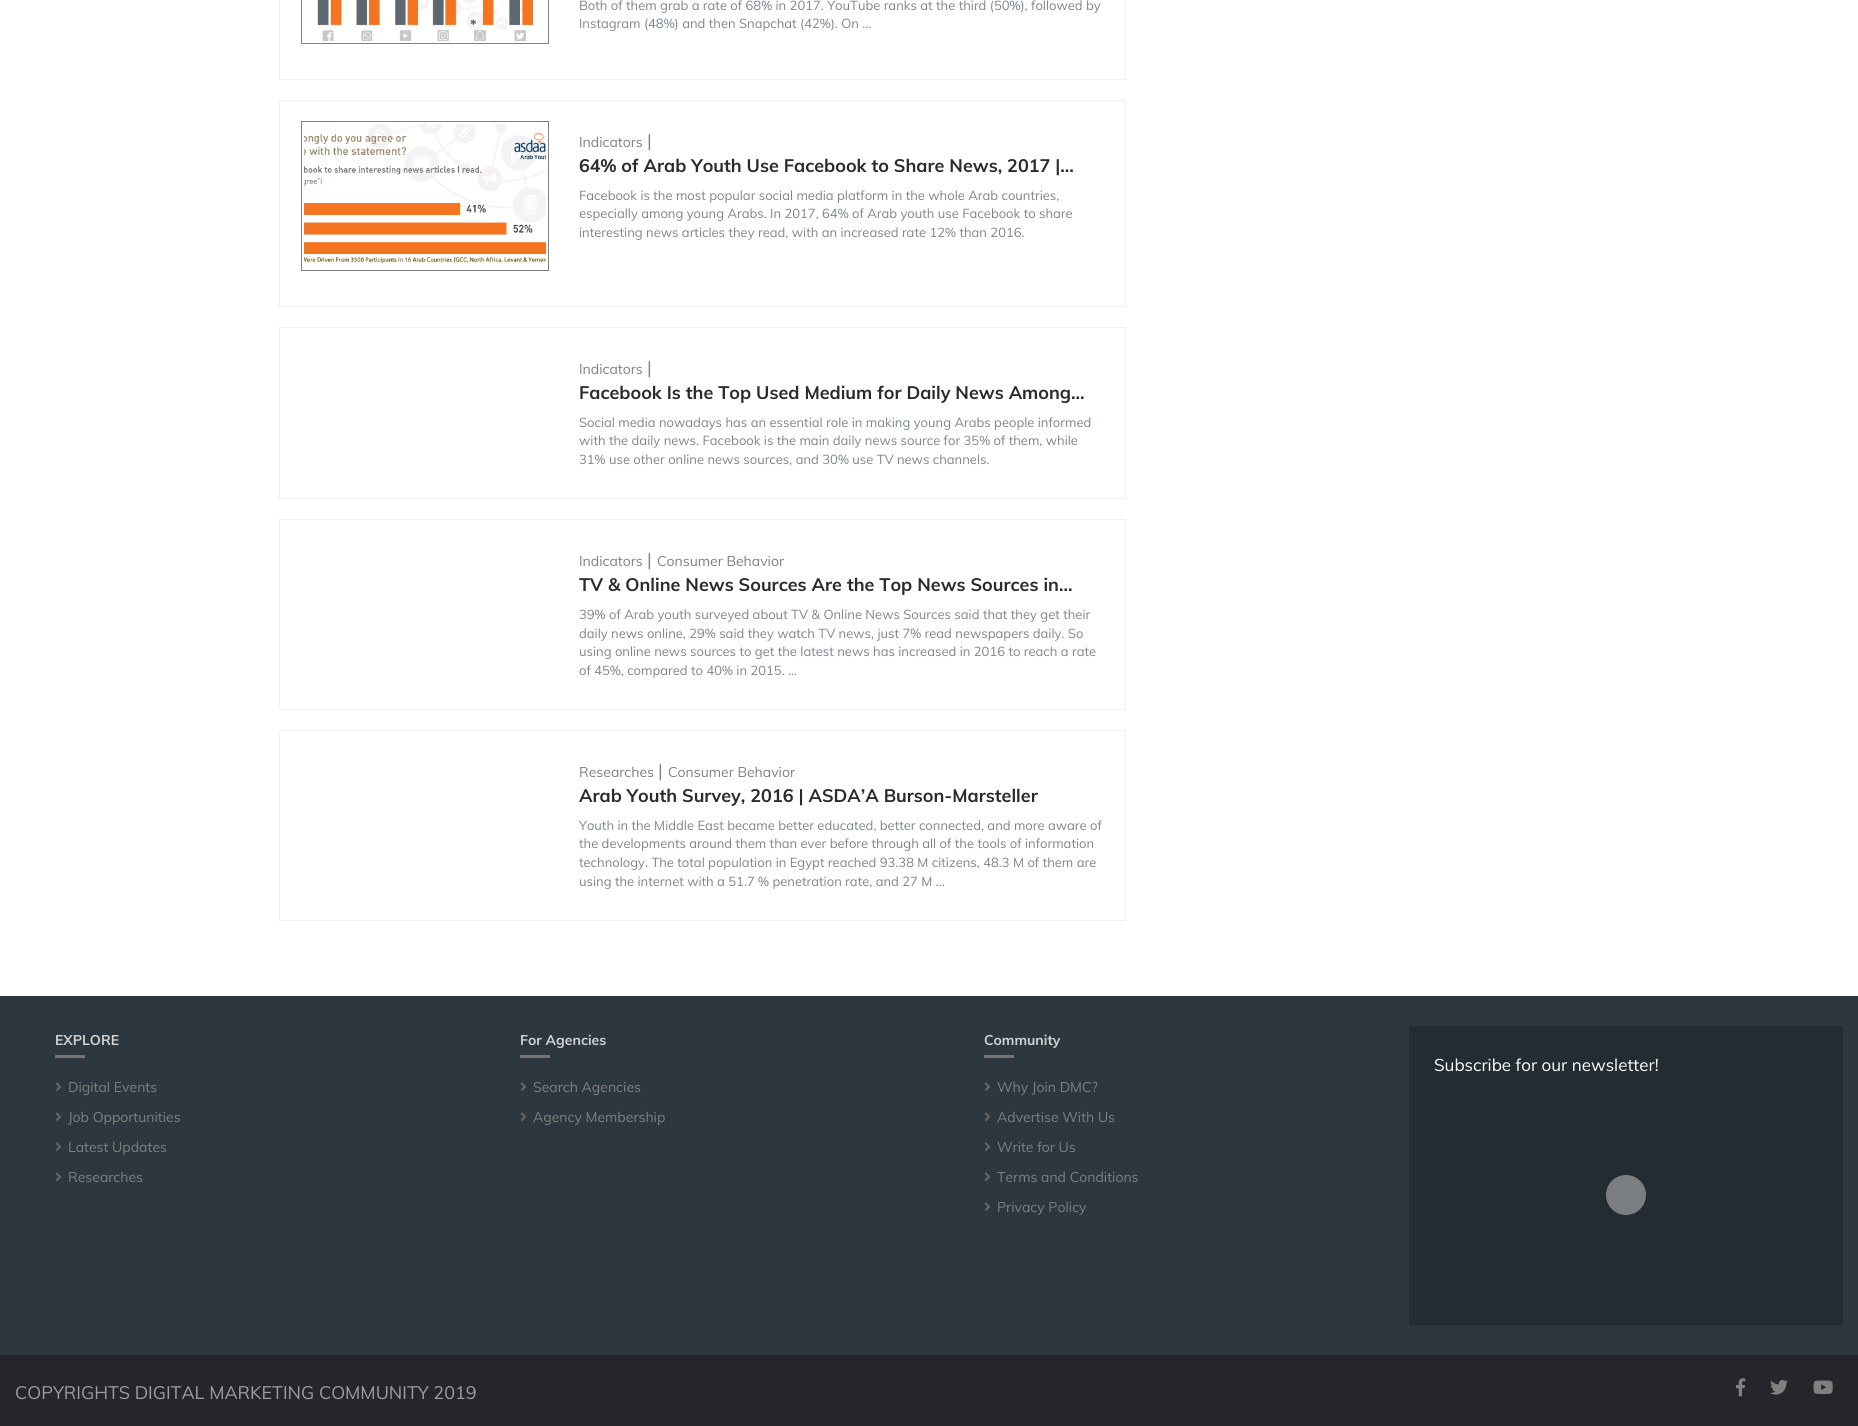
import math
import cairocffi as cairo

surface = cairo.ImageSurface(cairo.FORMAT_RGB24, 1858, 1426)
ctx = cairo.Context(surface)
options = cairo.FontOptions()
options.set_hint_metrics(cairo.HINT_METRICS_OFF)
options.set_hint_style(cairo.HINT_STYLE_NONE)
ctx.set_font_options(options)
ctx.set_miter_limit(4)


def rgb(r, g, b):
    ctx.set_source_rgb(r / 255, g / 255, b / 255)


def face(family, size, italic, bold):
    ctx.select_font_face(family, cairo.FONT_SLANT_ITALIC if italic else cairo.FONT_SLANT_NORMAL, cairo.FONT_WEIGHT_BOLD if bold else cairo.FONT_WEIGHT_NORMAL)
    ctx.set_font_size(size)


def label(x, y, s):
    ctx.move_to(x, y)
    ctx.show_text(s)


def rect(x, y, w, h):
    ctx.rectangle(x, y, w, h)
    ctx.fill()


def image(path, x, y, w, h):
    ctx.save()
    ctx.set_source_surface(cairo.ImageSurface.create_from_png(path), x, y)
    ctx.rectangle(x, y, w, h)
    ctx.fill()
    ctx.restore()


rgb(255, 255, 255)
ctx.paint()
ctx.rectangle(279.5, -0.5, 846, 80)
rgb(241, 241, 243)
ctx.set_line_width(1)
ctx.stroke()
ctx.rectangle(301.5, -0.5, 247, 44)
rgb(128, 128, 128)
ctx.stroke()
image('image0.png', 317, 0, 216, 41)
face('Muli', 13, 0, 0)
rgb(125, 133, 140)
label(579, 10, 'Both of them grab a rate of 68% in 2017. YouTube ranks at the third (50%), followed by')
label(579, 28, 'Instagram (48%) and then Snapchat (42%). On …')
ctx.rectangle(279.5, 100.5, 846, 206)
rgb(241, 241, 243)
ctx.stroke()
ctx.rectangle(301.5, 121.5, 247, 149)
rgb(128, 128, 128)
ctx.stroke()
image('image1.png', 304, 124, 242, 140)
face('Muli', 14, 0, 0)
rgb(126, 128, 126)
label(579, 147, 'Indicators')
face('Muli', 18, 0, 0)
label(647, 147, '|')
face('Muli', 18, 0, 1)
rgb(43, 43, 43)
label(579, 172, '64% of Arab Youth Use Facebook to Share News, 2017 |…')
face('Muli', 13, 0, 0)
rgb(125, 133, 140)
label(579, 200, 'Facebook is the most popular social media platform in the whole Arab countries,')
label(579, 218, 'especially among young Arabs. In 2017, 64% of Arab youth use Facebook to share')
label(579, 237, 'interesting news articles they read, with an increased rate 12% than 2016.')
ctx.rectangle(279.5, 327.5, 846, 171)
rgb(241, 241, 243)
ctx.stroke()
face('Muli', 14, 0, 0)
rgb(126, 128, 126)
label(579, 374, 'Indicators')
face('Muli', 18, 0, 0)
label(647, 374, '|')
face('Muli', 18, 0, 1)
rgb(43, 43, 43)
label(579, 399, 'Facebook Is the Top Used Medium for Daily News Among…')
face('Muli', 13, 0, 0)
rgb(125, 133, 140)
label(579, 427, 'Social media nowadays has an essential role in making young Arabs people informed')
label(579, 445, 'with the daily news. Facebook is the main daily news source for 35% of them, while')
label(579, 464, '31% use other online news sources, and 30% use TV news channels.')
ctx.rectangle(279.5, 519.5, 846, 190)
rgb(241, 241, 243)
ctx.stroke()
face('Muli', 14, 0, 0)
rgb(126, 128, 126)
label(579, 566, 'Indicators')
face('Muli', 18, 0, 0)
label(647, 566, '|')
face('Muli', 14, 0, 0)
label(657, 566, 'Consumer Behavior')
face('Muli', 18, 0, 1)
rgb(43, 43, 43)
label(579, 591, 'TV & Online News Sources Are the Top News Sources in…')
face('Muli', 13, 0, 0)
rgb(125, 133, 140)
label(579, 619, '39% of Arab youth surveyed about TV & Online News Sources said that they get their')
label(579, 638, 'daily news online, 29% said they watch TV news, just 7% read newspapers daily. So')
label(579, 656, 'using online news sources to get the latest news has increased in 2016 to reach a rate')
label(579, 675, 'of 45%, compared to 40% in 2015. …')
ctx.rectangle(279.5, 730.5, 846, 190)
rgb(241, 241, 243)
ctx.stroke()
face('Muli', 14, 0, 0)
rgb(126, 128, 126)
label(579, 777, 'Researches')
face('Muli', 18, 0, 0)
label(658, 777, '|')
face('Muli', 14, 0, 0)
label(668, 777, 'Consumer Behavior')
face('Muli', 18, 0, 1)
rgb(43, 43, 43)
label(579, 802, 'Arab Youth Survey, 2016 | ASDA’A Burson-Marsteller')
face('Muli', 13, 0, 0)
rgb(125, 133, 140)
label(579, 830, 'Youth in the Middle East became better educated, better connected, and more aware of')
label(579, 848, 'the developments around them than ever before through all of the tools of information')
label(579, 867, 'technology. The total population in Egypt reached 93.38 M citizens, 48.3 M of them are')
label(579, 886, 'using the internet with a 51.7 % penetration rate, and 27 M …')
rgb(44, 55, 64)
rect(0, 996, 1858, 359)
face('Muli', 14, 0, 1)
rgb(209, 209, 209)
label(55, 1045, 'EXPLORE')
rgb(119, 115, 114)
rect(55, 1055, 30, 3)
image('image2.png', 55, 1082, 7, 9)
face('Muli', 14, 0, 0)
rgb(126, 128, 126)
label(68, 1092, 'Digital Events')
image('image2.png', 55, 1112, 7, 9)
label(68, 1122, 'Job Opportunities')
image('image2.png', 55, 1142, 7, 9)
label(68, 1152, 'Latest Updates')
image('image2.png', 55, 1172, 7, 9)
label(68, 1182, 'Researches')
face('Muli', 14, 0, 1)
rgb(209, 209, 209)
label(520, 1045, 'For Agencies')
rgb(119, 115, 114)
rect(520, 1055, 30, 3)
image('image2.png', 520, 1082, 7, 9)
face('Muli', 14, 0, 0)
rgb(126, 128, 126)
label(533, 1092, 'Search Agencies')
image('image2.png', 520, 1112, 7, 9)
label(533, 1122, 'Agency Membership')
face('Muli', 14, 0, 1)
rgb(209, 209, 209)
label(984, 1045, 'Community')
rgb(119, 115, 114)
rect(984, 1055, 30, 3)
image('image2.png', 984, 1082, 7, 9)
face('Muli', 14, 0, 0)
rgb(126, 128, 126)
label(997, 1092, 'Why Join DMC?')
image('image2.png', 984, 1112, 7, 9)
label(997, 1122, 'Advertise With Us')
image('image2.png', 984, 1142, 7, 9)
label(997, 1152, 'Write for Us')
image('image2.png', 984, 1172, 7, 9)
label(997, 1182, 'Terms and Conditions')
image('image2.png', 984, 1202, 7, 9)
label(997, 1212, 'Privacy Policy')
rgb(35, 44, 51)
rect(1409, 1026, 434, 299)
face('Muli', 17, 0, 0)
rgb(255, 255, 255)
label(1434, 1071, 'Subscribe for our newsletter!')
rgb(122, 126, 130)
ctx.new_path()
ctx.arc(1626, 1195, 20, 0, 2 * math.pi)
ctx.fill()
rgb(36, 38, 43)
rect(0, 1355, 1858, 71)
face('Muli', 18, 0, 0)
rgb(158, 158, 159)
label(15, 1399, 'COPYRIGHTS DIGITAL MARKETING COMMUNITY 2019')
image('image3.png', 1736, 1378, 10, 19)
image('image4.png', 1770, 1380, 18, 15)
image('image5.png', 1813, 1380, 20, 14)
surface.write_to_png('render.png')
